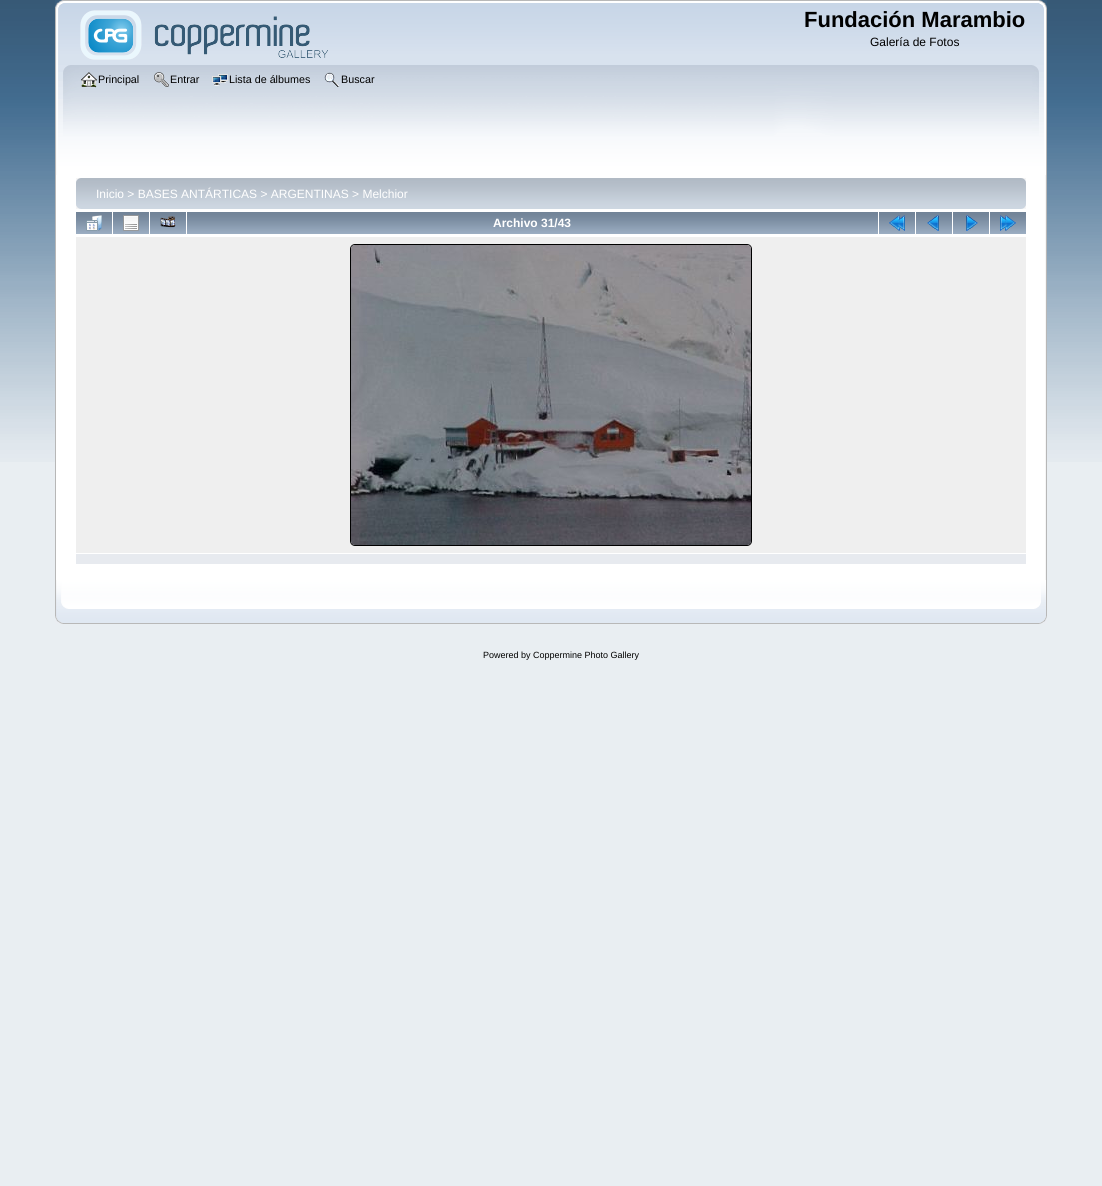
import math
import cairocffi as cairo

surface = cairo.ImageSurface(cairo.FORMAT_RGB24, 1102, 1186)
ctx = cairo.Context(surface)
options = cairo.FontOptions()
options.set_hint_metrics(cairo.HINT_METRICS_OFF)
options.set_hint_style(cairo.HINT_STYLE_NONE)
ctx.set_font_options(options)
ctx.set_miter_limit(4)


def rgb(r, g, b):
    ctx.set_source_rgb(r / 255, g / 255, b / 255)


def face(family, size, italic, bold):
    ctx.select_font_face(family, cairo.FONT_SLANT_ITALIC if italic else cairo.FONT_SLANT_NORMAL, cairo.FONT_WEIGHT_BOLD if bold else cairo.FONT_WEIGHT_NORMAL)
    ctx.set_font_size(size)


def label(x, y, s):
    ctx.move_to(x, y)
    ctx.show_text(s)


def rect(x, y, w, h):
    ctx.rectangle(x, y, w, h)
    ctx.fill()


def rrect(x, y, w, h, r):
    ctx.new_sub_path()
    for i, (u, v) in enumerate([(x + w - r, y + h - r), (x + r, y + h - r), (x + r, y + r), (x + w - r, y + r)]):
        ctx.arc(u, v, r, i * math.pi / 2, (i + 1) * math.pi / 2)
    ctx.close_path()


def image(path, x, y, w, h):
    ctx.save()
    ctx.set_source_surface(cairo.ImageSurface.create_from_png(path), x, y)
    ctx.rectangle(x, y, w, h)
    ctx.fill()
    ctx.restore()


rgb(233, 238, 242)
ctx.paint()
image('image0.png', 0, 0, 1102, 462)
image('image1.png', 55, 0, 984, 65)
image('image2.png', 1039, 0, 8, 65)
image('image3.png', 80, 10, 248, 50)
face('Liberation Sans', 22, 0, 1)
rgb(0, 0, 0)
label(804, 27, 'Fundación Marambio')
face('Liberation Sans', 12, 0, 0)
label(870, 46, 'Galería de Fotos')
image('image4.png', 55, 65, 977, 110)
image('image5.png', 1032, 65, 15, 110)
image('image6.png', 81, 72, 16, 16)
face('Liberation Sans', 10.75, 0, 0)
label(98, 83, 'Principal')
image('image7.png', 154, 72, 15, 15)
label(170, 83, 'Entrar')
image('image8.png', 212, 74, 16, 12)
label(229, 83, 'Lista de álbumes')
image('image9.png', 324, 72, 16, 15)
label(341, 83, 'Buscar')
rgb(255, 255, 255)
rect(56, 175, 989, 405)
rgb(183, 183, 183)
rect(55, 175, 1, 405)
image('image10.png', 1045, 175, 2, 405)
image('image11.png', 76, 178, 945, 31)
image('image12.png', 1021, 178, 5, 31)
face('Liberation Sans', 12, 0, 0)
rgb(255, 255, 255)
label(96, 198, 'Inicio > BASES ANTÁRTICAS > ARGENTINAS > Melchior')
image('image13.png', 76, 212, 36, 22)
image('image14.png', 86, 215, 16, 16)
image('image13.png', 113, 212, 36, 22)
image('image15.png', 123, 215, 16, 16)
image('image13.png', 150, 212, 36, 22)
image('image16.png', 160, 216, 16, 12)
image('image17.png', 187, 212, 691, 22)
face('Liberation Sans', 12, 0, 1)
label(493, 227, 'Archivo 31/43')
image('image13.png', 879, 212, 36, 22)
image('image18.png', 889, 215, 16, 16)
image('image13.png', 916, 212, 36, 22)
image('image19.png', 927, 215, 12, 16)
image('image13.png', 953, 212, 36, 22)
image('image20.png', 966, 215, 12, 16)
image('image13.png', 990, 212, 36, 22)
image('image21.png', 1000, 215, 16, 16)
rgb(239, 239, 239)
rect(76, 237, 950, 316)
rrect(350.5, 244.5, 401, 301, 4.5)
rgb(0, 0, 0)
ctx.set_line_width(1)
ctx.stroke()
image('image22.png', 351, 245, 400, 300)
rgb(231, 234, 239)
rect(76, 554, 950, 10)
image('image23.png', 55, 580, 979, 44)
image('image24.png', 1034, 580, 13, 44)
face('Liberation Sans', 9, 0, 0)
rgb(0, 0, 0)
label(483, 658, 'Powered by Coppermine Photo Gallery')
surface.write_to_png('render.png')
